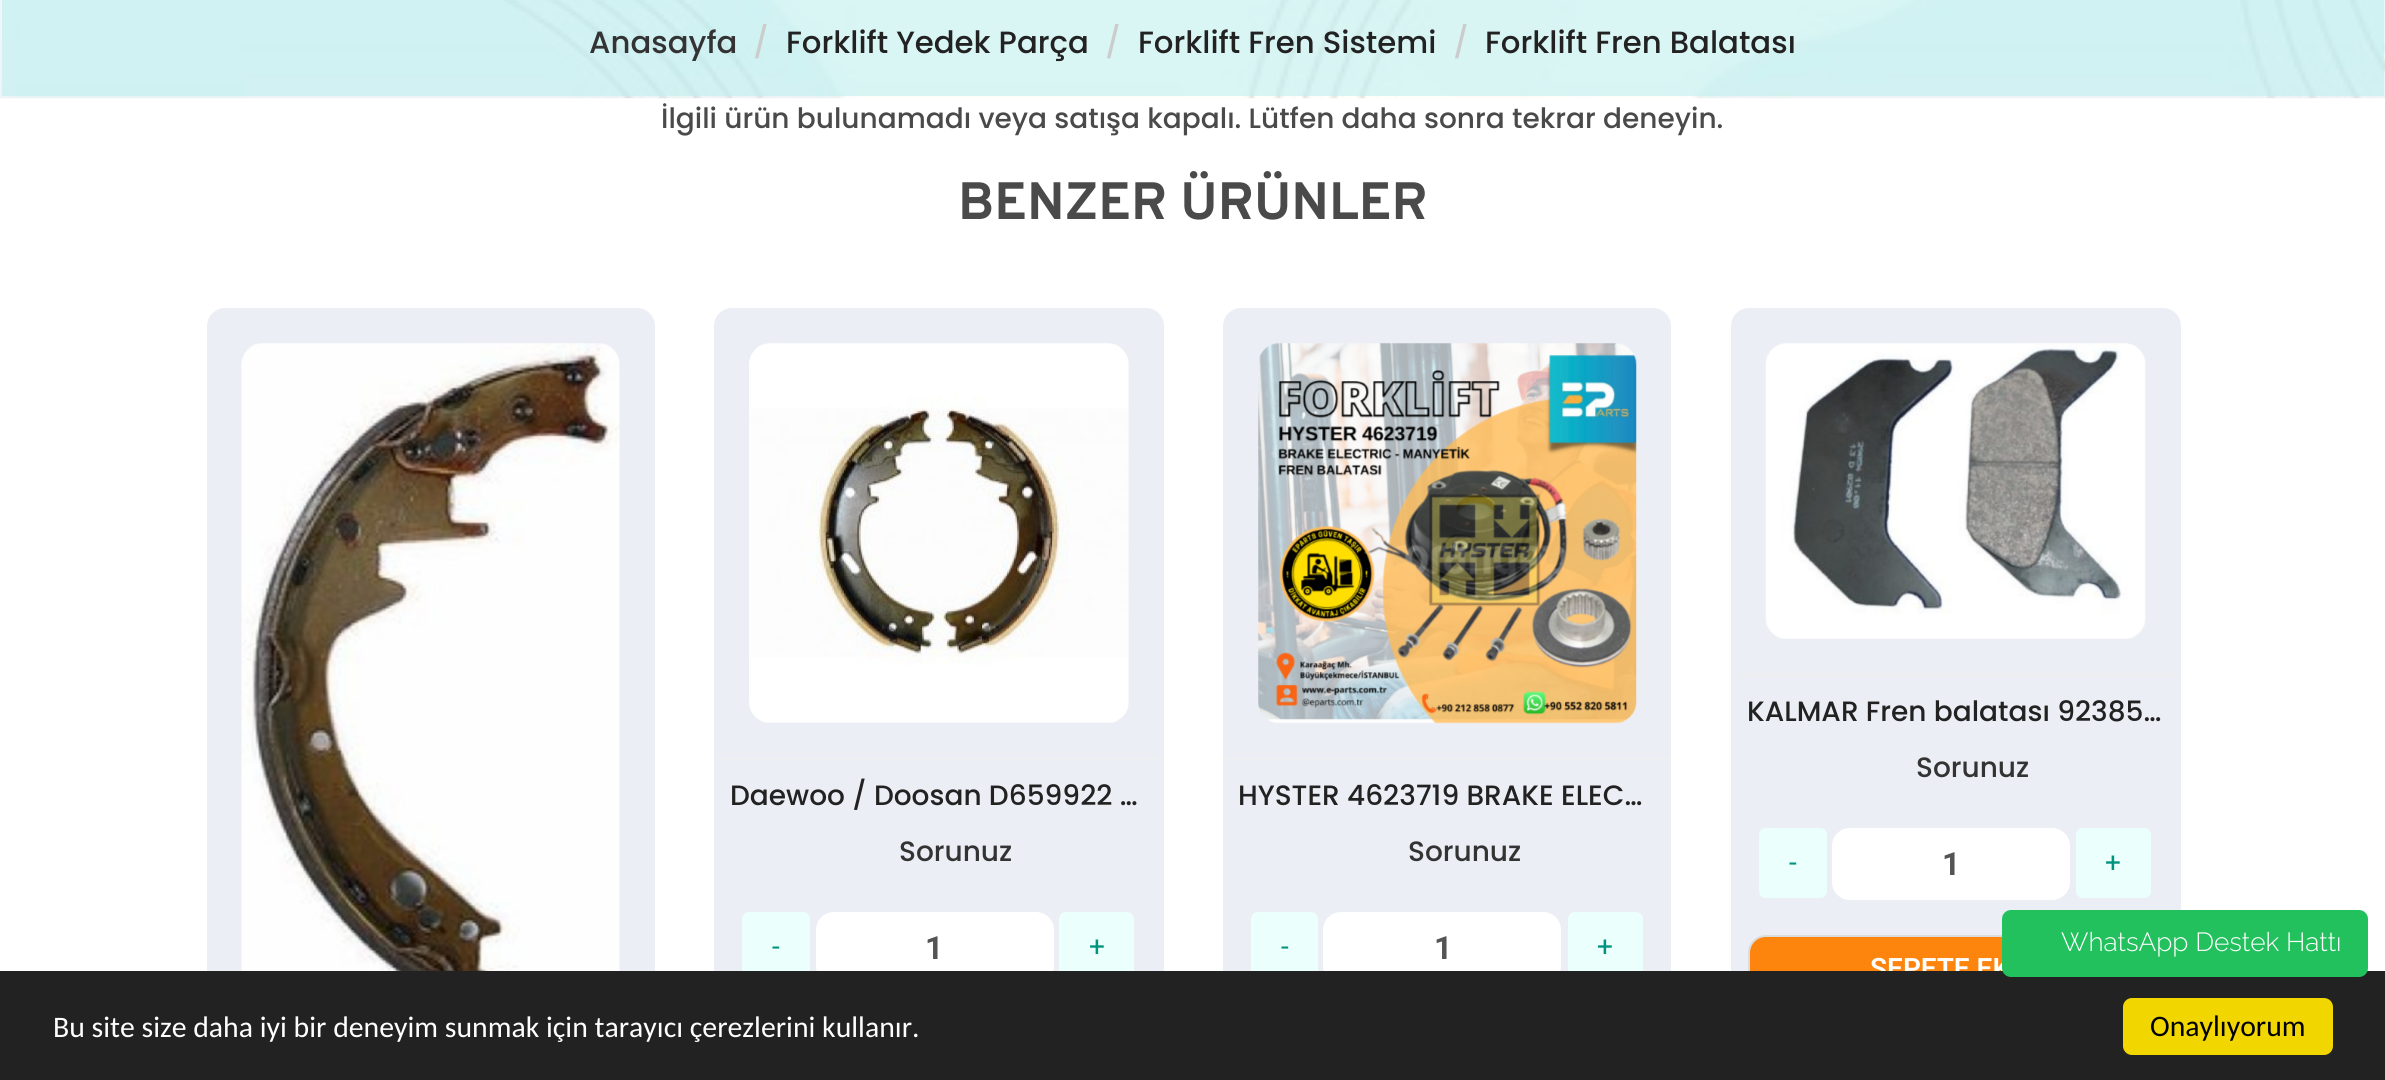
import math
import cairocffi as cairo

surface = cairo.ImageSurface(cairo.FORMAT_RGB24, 2385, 1080)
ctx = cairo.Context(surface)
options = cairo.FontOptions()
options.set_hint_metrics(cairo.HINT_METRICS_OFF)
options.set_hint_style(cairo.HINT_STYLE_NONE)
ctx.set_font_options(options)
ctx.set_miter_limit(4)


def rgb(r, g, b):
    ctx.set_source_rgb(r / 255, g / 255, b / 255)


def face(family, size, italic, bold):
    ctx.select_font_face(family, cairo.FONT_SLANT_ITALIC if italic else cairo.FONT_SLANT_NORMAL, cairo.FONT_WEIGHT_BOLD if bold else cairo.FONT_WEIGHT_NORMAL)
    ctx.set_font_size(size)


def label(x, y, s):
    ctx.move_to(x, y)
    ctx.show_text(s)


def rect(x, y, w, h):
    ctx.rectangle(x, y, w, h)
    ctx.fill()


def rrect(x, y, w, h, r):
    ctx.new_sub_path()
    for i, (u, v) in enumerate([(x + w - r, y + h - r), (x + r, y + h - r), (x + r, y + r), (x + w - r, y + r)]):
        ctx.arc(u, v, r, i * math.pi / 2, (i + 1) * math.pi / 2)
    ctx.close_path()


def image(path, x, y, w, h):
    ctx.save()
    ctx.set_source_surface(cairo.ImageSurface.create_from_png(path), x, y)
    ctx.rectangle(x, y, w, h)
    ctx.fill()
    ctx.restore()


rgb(255, 255, 255)
ctx.paint()
image('image0.png', 0, 0, 2385, 99)
face('Poppins Medium', 30.75, 0, 0)
rgb(51, 51, 51)
label(589, 53, 'Anasayfa')
rgb(204, 204, 204)
label(753, 53, '/')
rgb(34, 34, 34)
label(786, 53, 'Forklift Yedek Parça')
rgb(204, 204, 204)
label(1105, 53, '/')
rgb(34, 34, 34)
label(1138, 53, 'Forklift Fren Sistemi')
rgb(204, 204, 204)
label(1453, 53, '/')
rgb(34, 34, 34)
label(1485, 53, 'Forklift Fren Balatası')
face('Poppins Medium', 28, 0, 0)
rgb(74, 74, 74)
label(661, 128, 'İlgili ürün bulunamadı veya satışa kapalı. Lütfen daha sonra tekrar deneyin.')
face('Overpass', 52.5, 0, 1)
label(958, 219, 'BENZER ÜRÜNLER')
rgb(236, 238, 245)
rrect(207, 308, 448, 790, 18)
ctx.fill()
image('image1.png', 241, 343, 379, 628)
rrect(714, 308, 450, 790, 18)
ctx.fill()
image('image2.png', 749, 343, 380, 380)
rgb(238, 239, 240)
rect(714, 758, 450, 2)
face('Poppins Medium', 28, 0, 0)
rgb(34, 34, 34)
label(730, 805, 'Daewoo / Doosan D659922 …')
rgb(51, 51, 51)
label(899, 861, 'Sorunuz')
rgb(235, 255, 252)
rrect(742, 912, 68, 70, 7)
ctx.fill()
face('Roboto', 28, 0, 0)
rgb(0, 148, 126)
label(772, 956, '-')
rgb(255, 255, 255)
rrect(816, 912, 238, 72, 18)
ctx.fill()
face('Roboto', 32, 0, 1)
rgb(84, 84, 84)
label(925, 959, '1')
rgb(235, 255, 252)
rrect(1059, 912, 75, 70, 7)
ctx.fill()
face('Roboto', 28, 0, 0)
rgb(0, 148, 126)
label(1089, 956, '+')
rgb(236, 238, 245)
rrect(1223, 308, 448, 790, 18)
ctx.fill()
image('image3.png', 1258, 343, 379, 381)
rgb(238, 239, 240)
rect(1223, 758, 448, 2)
face('Poppins Medium', 28, 0, 0)
rgb(34, 34, 34)
label(1238, 805, 'HYSTER 4623719 BRAKE ELEC…')
rgb(51, 51, 51)
label(1408, 861, 'Sorunuz')
rgb(235, 255, 252)
rrect(1251, 912, 67, 70, 7)
ctx.fill()
face('Roboto', 28, 0, 0)
rgb(0, 148, 126)
label(1281, 956, '-')
rgb(255, 255, 255)
rrect(1323, 912, 238, 72, 18)
ctx.fill()
face('Roboto', 32, 0, 1)
rgb(84, 84, 84)
label(1434, 959, '1')
rgb(235, 255, 252)
rrect(1568, 912, 75, 70, 7)
ctx.fill()
face('Roboto', 28, 0, 0)
rgb(0, 148, 126)
label(1597, 956, '+')
rgb(236, 238, 245)
rrect(1731, 308, 450, 714, 18)
ctx.fill()
image('image4.png', 1765, 343, 381, 296)
rgb(238, 239, 240)
rect(1731, 674, 450, 2)
face('Poppins Medium', 28, 0, 0)
rgb(34, 34, 34)
label(1747, 721, 'KALMAR Fren balatası 92385…')
rgb(51, 51, 51)
label(1916, 777, 'Sorunuz')
rgb(235, 255, 252)
rrect(1759, 828, 68, 70, 7)
ctx.fill()
face('Roboto', 28, 0, 0)
rgb(0, 148, 126)
label(1789, 872, '-')
rgb(255, 255, 255)
rrect(1832, 828, 238, 72, 18)
ctx.fill()
face('Roboto', 32, 0, 1)
rgb(84, 84, 84)
label(1942, 875, '1')
rgb(235, 255, 252)
rrect(2076, 828, 75, 70, 7)
ctx.fill()
face('Roboto', 28, 0, 0)
rgb(0, 148, 126)
label(2105, 872, '+')
rgb(253, 132, 13)
rrect(1749, 936, 413, 68, 17)
ctx.fill_preserve()
rgb(219, 219, 219)
ctx.stroke()
face('Roboto SemiBold', 28, 0, 0)
rgb(255, 255, 255)
label(1870, 978, 'SEPETE EK')
rgb(34, 34, 34)
rect(0, 971, 2385, 109)
rgb(34, 193, 94)
rrect(2002, 910, 366, 67, 9)
ctx.fill()
face('Raleway Light', 26.25, 0, 0)
rgb(255, 255, 255)
label(2061, 951, 'WhatsApp Destek Hattı')
face('Carlito', 29.75, 0, 0)
label(53, 1037, 'Bu site size daha iyi bir deneyim sunmak için tarayıcı çerezlerini kullanır.')
rgb(241, 214, 0)
rrect(2123, 998, 210, 57, 9)
ctx.fill()
rgb(0, 0, 0)
label(2150, 1036, 'Onaylıyorum')
surface.write_to_png('render.png')
